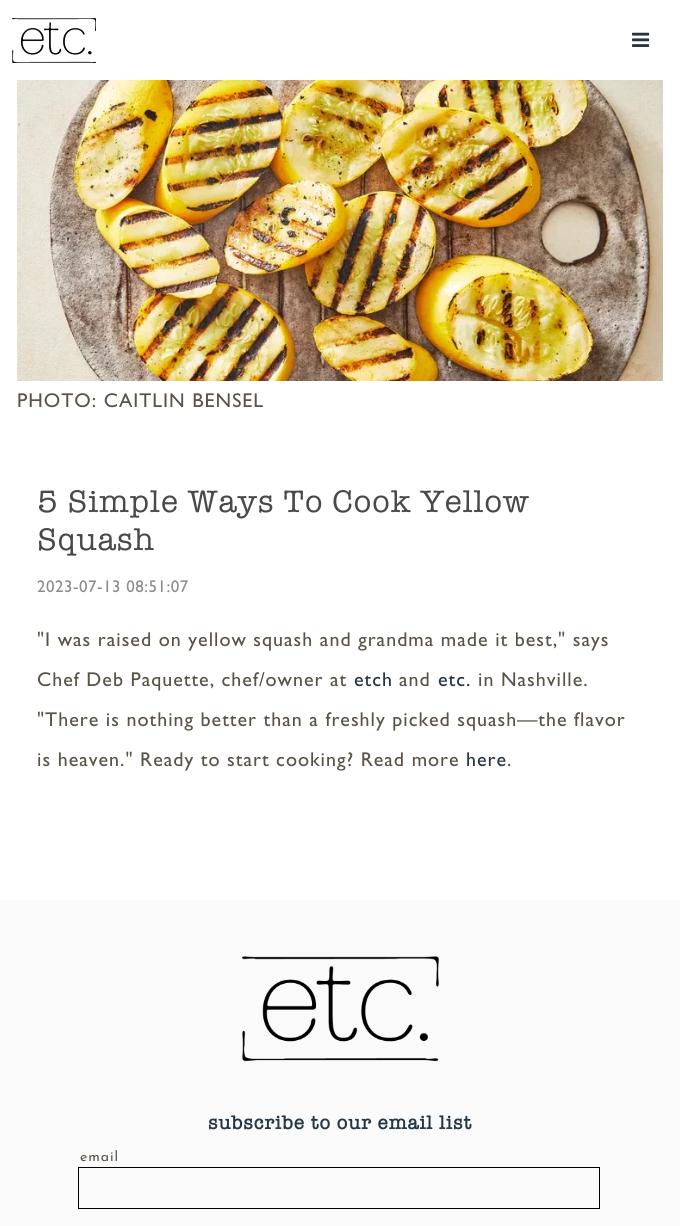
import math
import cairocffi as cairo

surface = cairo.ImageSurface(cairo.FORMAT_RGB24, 680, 1226)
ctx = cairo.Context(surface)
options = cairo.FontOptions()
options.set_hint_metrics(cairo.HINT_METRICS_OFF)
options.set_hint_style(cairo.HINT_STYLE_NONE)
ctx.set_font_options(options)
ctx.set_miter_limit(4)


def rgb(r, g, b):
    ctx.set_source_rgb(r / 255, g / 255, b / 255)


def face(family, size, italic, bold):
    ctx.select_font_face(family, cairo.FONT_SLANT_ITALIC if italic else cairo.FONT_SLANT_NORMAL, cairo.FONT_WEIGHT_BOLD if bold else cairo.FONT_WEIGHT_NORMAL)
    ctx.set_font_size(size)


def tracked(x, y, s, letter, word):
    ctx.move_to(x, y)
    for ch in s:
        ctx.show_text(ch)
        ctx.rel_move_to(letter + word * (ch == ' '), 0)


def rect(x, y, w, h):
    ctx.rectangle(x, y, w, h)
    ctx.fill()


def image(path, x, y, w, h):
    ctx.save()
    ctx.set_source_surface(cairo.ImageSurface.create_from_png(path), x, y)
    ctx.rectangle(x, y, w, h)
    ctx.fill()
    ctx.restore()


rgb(255, 255, 255)
ctx.paint()
image('image0.png', 12, 18, 84, 45)
image('image1.png', 632, 32, 18, 15)
image('image2.png', 17, 80, 646, 301)
face('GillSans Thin', 20, 0, 0)
rgb(90, 84, 72)
tracked(17, 407, 'PHOTO: CAITLIN BENSEL', 1, 0)
face('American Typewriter', 32, 0, 0)
rgb(73, 73, 73)
tracked(37, 512, '5 Simple Ways To Cook Yellow', 1, 0)
tracked(37, 550, 'Squash', 1, 0)
face('GillSans Thin', 17, 0, 0)
rgb(141, 141, 141)
tracked(37, 592, '2023-07-13 08:51:07', 0.5, 0)
face('GillSans Thin', 20, 0, 0)
rgb(90, 84, 72)
tracked(37, 646, '"I was raised on yellow squash and grandma made it best," says', 1, 0)
tracked(37, 686, 'Chef Deb Paquette, chef/owner at', 1, 0)
rgb(37, 55, 70)
tracked(354, 686, 'etch', 1, 0)
rgb(90, 84, 72)
tracked(399, 686, 'and', 1, 0)
rgb(37, 55, 70)
tracked(438, 686, 'etc.', 1, 0)
rgb(90, 84, 72)
tracked(478, 686, 'in Nashville.', 1, 0)
tracked(37, 726, '"There is nothing better than a freshly picked squash—the flavor', 1, 0)
tracked(37, 766, 'is heaven." Ready to start cooking? Read more', 1, 0)
rgb(37, 55, 70)
tracked(466, 766, 'here', 1, 0)
rgb(90, 84, 72)
tracked(507, 766, '.', 1, 0)
rgb(250, 250, 250)
rect(0, 900, 680, 326)
image('image3.png', 242, 956, 197, 106)
face('American Typewriter', 19.25, 0, 1)
rgb(37, 55, 70)
tracked(208, 1129, 'subscribe to our email list', 1, 0)
face('Josefin Sans', 14, 0, 0)
rgb(90, 84, 72)
tracked(80, 1161, 'email', 1, 0)
ctx.rectangle(78.5, 1167.5, 521, 41)
rgb(0, 0, 0)
ctx.set_line_width(1)
ctx.stroke()
surface.write_to_png('render.png')
